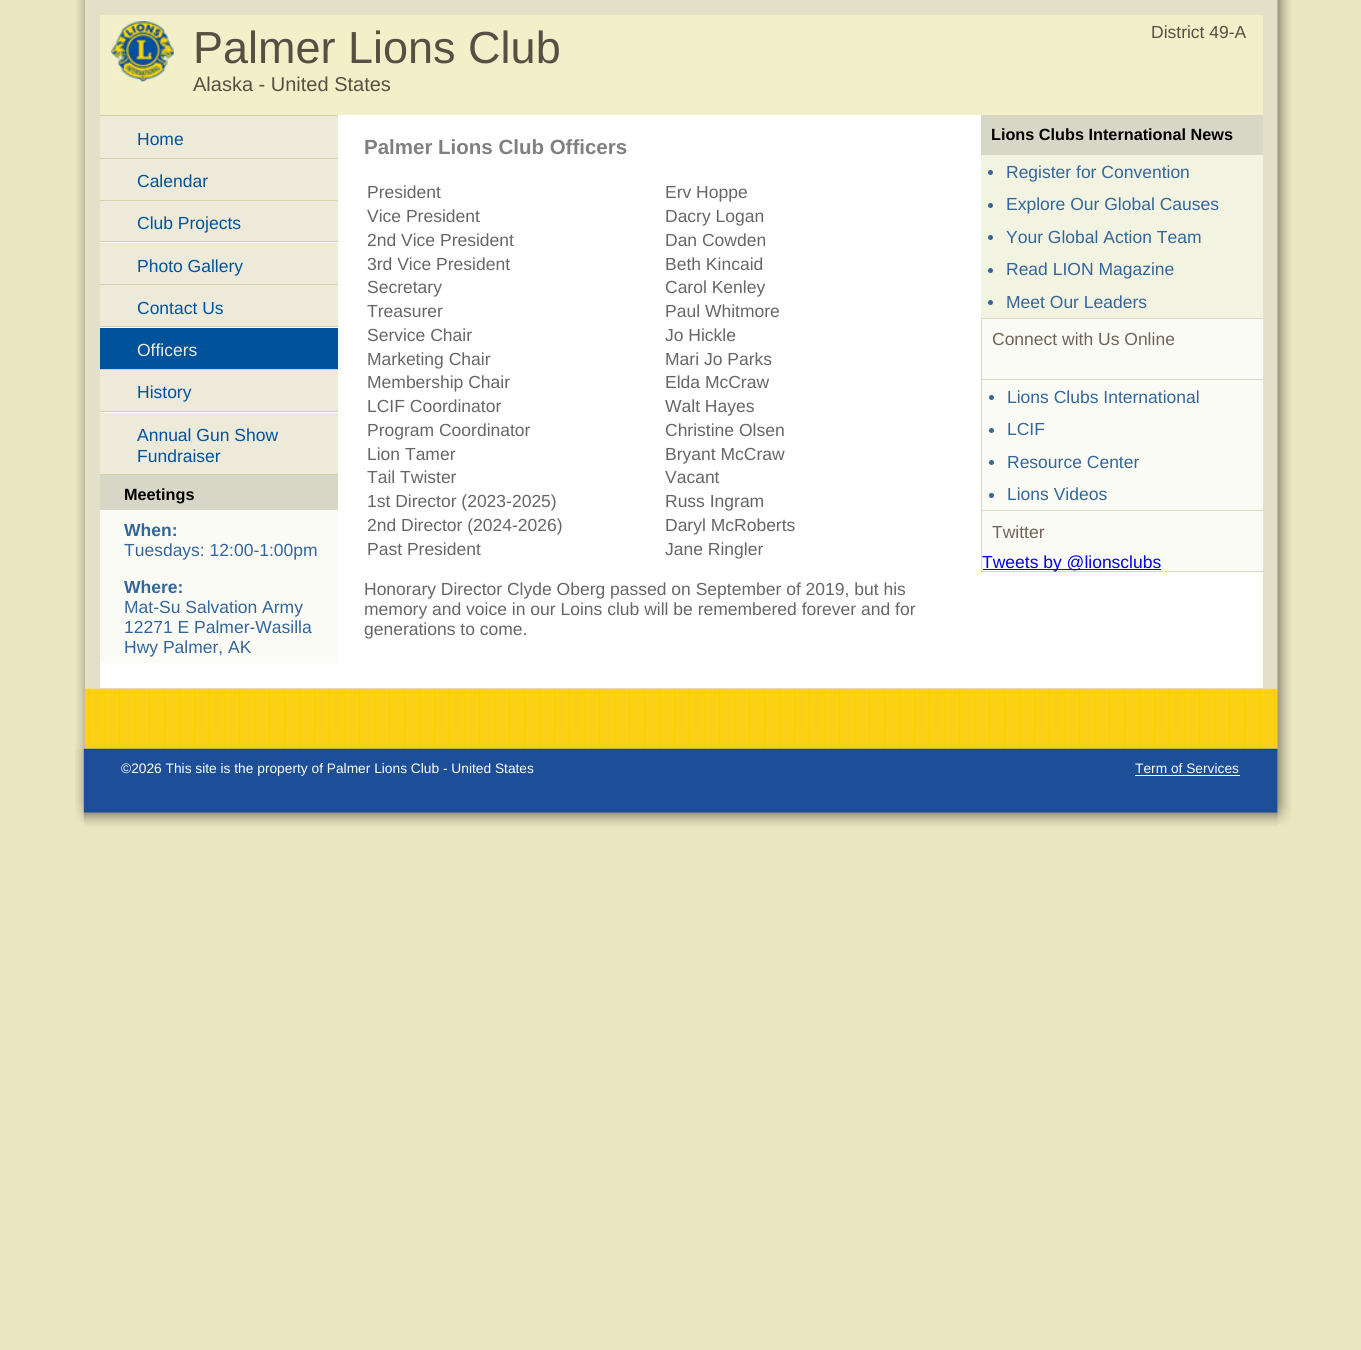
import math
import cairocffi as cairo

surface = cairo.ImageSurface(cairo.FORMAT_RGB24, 1361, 1350)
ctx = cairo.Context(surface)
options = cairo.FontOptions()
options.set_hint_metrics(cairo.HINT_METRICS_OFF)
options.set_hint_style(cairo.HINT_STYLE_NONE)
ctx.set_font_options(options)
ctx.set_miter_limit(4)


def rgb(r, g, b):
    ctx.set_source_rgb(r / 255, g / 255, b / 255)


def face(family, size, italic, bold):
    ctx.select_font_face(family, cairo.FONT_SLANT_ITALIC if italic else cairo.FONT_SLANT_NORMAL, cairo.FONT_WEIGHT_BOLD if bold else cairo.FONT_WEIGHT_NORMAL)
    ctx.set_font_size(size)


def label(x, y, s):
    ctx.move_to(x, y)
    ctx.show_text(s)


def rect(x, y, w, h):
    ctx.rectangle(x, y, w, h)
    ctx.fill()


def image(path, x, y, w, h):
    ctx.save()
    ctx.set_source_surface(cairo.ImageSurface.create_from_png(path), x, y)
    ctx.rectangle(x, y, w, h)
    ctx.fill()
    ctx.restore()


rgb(235, 230, 192)
ctx.paint()
image('image0.png', 76, 0, 9, 749)
rgb(226, 224, 198)
rect(85, 0, 1193, 749)
image('image1.png', 85, 688, 1193, 61)
rgb(243, 240, 201)
rect(100, 15, 1163, 100)
image('image2.png', 111, 21, 63, 61)
face('Liberation Sans', 45, 0, 0)
rgb(88, 79, 68)
label(193, 63, 'Palmer Lions Club')
face('Liberation Sans', 20, 0, 0)
label(193, 91, 'Alaska - United States')
face('Liberation Sans', 17.5, 0, 0)
label(1151, 38, 'District 49-A')
rgb(255, 255, 255)
rect(100, 115, 1163, 573)
rgb(213, 208, 170)
rect(100, 115, 238, 1)
rect(100, 158, 238, 1)
rgb(237, 234, 218)
rect(100, 116, 238, 42)
rgb(0, 82, 155)
label(137, 145, 'Home')
rgb(213, 208, 170)
rect(100, 200, 238, 1)
rgb(237, 234, 218)
rect(100, 159, 238, 41)
rgb(0, 82, 155)
label(137, 187, 'Calendar')
rgb(213, 208, 170)
rect(100, 241, 238, 1)
rgb(237, 234, 218)
rect(100, 201, 238, 40)
rgb(0, 82, 155)
label(137, 229, 'Club Projects')
rgb(213, 208, 170)
rect(100, 284, 238, 1)
rgb(237, 234, 218)
rect(100, 243, 238, 41)
rgb(0, 82, 155)
label(137, 272, 'Photo Gallery')
rgb(213, 208, 170)
rect(100, 326, 238, 1)
rgb(237, 234, 218)
rect(100, 285, 238, 41)
rgb(0, 82, 155)
label(137, 314, 'Contact Us')
rgb(213, 208, 170)
rect(100, 369, 238, 1)
rgb(0, 82, 155)
rect(100, 328, 238, 41)
rgb(237, 234, 218)
label(137, 356, 'Officers')
rgb(213, 208, 170)
rect(100, 411, 238, 1)
rgb(237, 234, 218)
rect(100, 370, 238, 41)
rgb(0, 82, 155)
label(137, 398, 'History')
rgb(213, 208, 170)
rect(100, 474, 238, 1)
rgb(237, 234, 218)
rect(100, 413, 238, 61)
rgb(0, 82, 155)
label(137, 441, 'Annual Gun Show')
label(137, 462, 'Fundraiser')
rgb(251, 251, 246)
rect(100, 510, 238, 153)
rgb(215, 215, 199)
rect(100, 475, 238, 35)
face('Liberation Sans', 16.25, 0, 1)
rgb(0, 0, 0)
label(124, 500, 'Meetings')
face('Liberation Sans', 17.5, 0, 1)
rgb(51, 102, 153)
label(124, 536, 'When:')
face('Liberation Sans', 17.5, 0, 0)
label(124, 556, 'Tuesdays: 12:00-1:00pm')
face('Liberation Sans', 17.5, 0, 1)
label(124, 593, 'Where:')
face('Liberation Sans', 17.5, 0, 0)
label(124, 613, 'Mat-Su Salvation Army')
label(124, 633, '12271 E Palmer-Wasilla')
label(124, 653, 'Hwy Palmer, AK')
face('Liberation Sans', 20.5, 0, 1)
rgb(128, 128, 128)
label(364, 154, 'Palmer Lions Club Officers')
face('Liberation Sans', 17.5, 0, 0)
rgb(102, 102, 102)
label(367, 198, 'President')
label(665, 198, 'Erv Hoppe')
label(367, 222, 'Vice President')
label(665, 222, 'Dacry Logan')
label(367, 246, '2nd Vice President')
label(665, 246, 'Dan Cowden')
label(367, 270, '3rd Vice President')
label(665, 270, 'Beth Kincaid')
label(367, 293, 'Secretary')
label(665, 293, 'Carol Kenley')
label(367, 317, 'Treasurer')
label(665, 317, 'Paul Whitmore')
label(367, 341, 'Service Chair')
label(665, 341, 'Jo Hickle')
label(367, 365, 'Marketing Chair')
label(665, 365, 'Mari Jo Parks')
label(367, 388, 'Membership Chair')
label(665, 388, 'Elda McCraw')
label(367, 412, 'LCIF Coordinator')
label(665, 412, 'Walt Hayes')
label(367, 436, 'Program Coordinator')
label(665, 436, 'Christine Olsen')
label(367, 460, 'Lion Tamer')
label(665, 460, 'Bryant McCraw')
label(367, 483, 'Tail Twister')
label(665, 483, 'Vacant')
label(367, 507, '1st Director (2023-2025)')
label(665, 507, 'Russ Ingram')
label(367, 531, '2nd Director (2024-2026)')
label(665, 531, 'Daryl McRoberts')
label(367, 555, 'Past President')
label(665, 555, 'Jane Ringler')
label(364, 595, 'Honorary Director Clyde Oberg passed on September of 2019, but his')
label(364, 615, 'memory and voice in our Loins club will be remembered forever and for')
label(364, 635, 'generations to come.')
rgb(243, 243, 225)
rect(981, 155, 282, 163)
rgb(215, 215, 199)
rect(981, 115, 282, 39)
face('Liberation Sans', 16.25, 0, 1)
rgb(0, 0, 0)
label(991, 140, 'Lions Clubs International News')
rgb(220, 216, 200)
rect(981, 154, 282, 1)
rgb(51, 102, 153)
ctx.new_path()
ctx.arc(990.5, 172.5, 2.5, 0, 2 * math.pi)
ctx.fill()
face('Liberation Sans', 17.5, 0, 0)
label(1006, 178, 'Register for Convention')
ctx.new_path()
ctx.arc(990.5, 205.5, 2.5, 0, 2 * math.pi)
ctx.fill()
label(1006, 210, 'Explore Our Global Causes')
ctx.new_path()
ctx.arc(990.5, 237.5, 2.5, 0, 2 * math.pi)
ctx.fill()
label(1006, 243, 'Your Global Action Team')
ctx.new_path()
ctx.arc(990.5, 270.5, 2.5, 0, 2 * math.pi)
ctx.fill()
label(1006, 275, 'Read LION Magazine')
ctx.new_path()
ctx.arc(990.5, 302.5, 2.5, 0, 2 * math.pi)
ctx.fill()
label(1006, 308, 'Meet Our Leaders')
rgb(220, 216, 200)
rect(981, 318, 282, 1)
rgb(251, 251, 246)
rect(982, 319, 281, 60)
rgb(220, 216, 200)
rect(981, 319, 1, 60)
rgb(112, 99, 86)
label(992, 345, 'Connect with Us Online')
rgb(220, 216, 200)
rect(981, 379, 282, 1)
rgb(251, 251, 246)
rect(982, 380, 281, 130)
rgb(220, 216, 200)
rect(981, 380, 1, 130)
rgb(51, 102, 153)
ctx.new_path()
ctx.arc(991.5, 397.5, 2.5, 0, 2 * math.pi)
ctx.fill()
label(1007, 403, 'Lions Clubs International')
ctx.new_path()
ctx.arc(991.5, 430.5, 2.5, 0, 2 * math.pi)
ctx.fill()
label(1007, 435, 'LCIF')
ctx.new_path()
ctx.arc(991.5, 462.5, 2.5, 0, 2 * math.pi)
ctx.fill()
label(1007, 468, 'Resource Center')
ctx.new_path()
ctx.arc(991.5, 495.5, 2.5, 0, 2 * math.pi)
ctx.fill()
label(1007, 500, 'Lions Videos')
rgb(220, 216, 200)
rect(981, 510, 282, 1)
rgb(251, 251, 246)
rect(981, 511, 282, 62)
rgb(220, 216, 200)
rect(981, 511, 1, 60)
rgb(112, 99, 86)
label(992, 538, 'Twitter')
rgb(0, 0, 238)
rect(983, 569, 178, 1)
rgb(220, 216, 200)
rect(981, 571, 282, 1)
rgb(0, 0, 238)
label(982, 568, 'Tweets by @lionsclubs')
image('image3.png', 1277, 0, 14, 749)
image('image5.png', 83, 748, 1052, 79)
image('image4.png', 75, 748, 9, 74)
face('Liberation Sans', 13.75, 0, 0)
rgb(255, 255, 255)
label(121, 773, '©2026 This site is the property of Palmer Lions Club - United States')
image('image6.png', 1135, 748, 143, 79)
label(1135, 773, 'Term of Services')
rect(1135, 775, 105, 1)
image('image7.png', 1277, 748, 14, 77)
surface.write_to_png('render.png')
